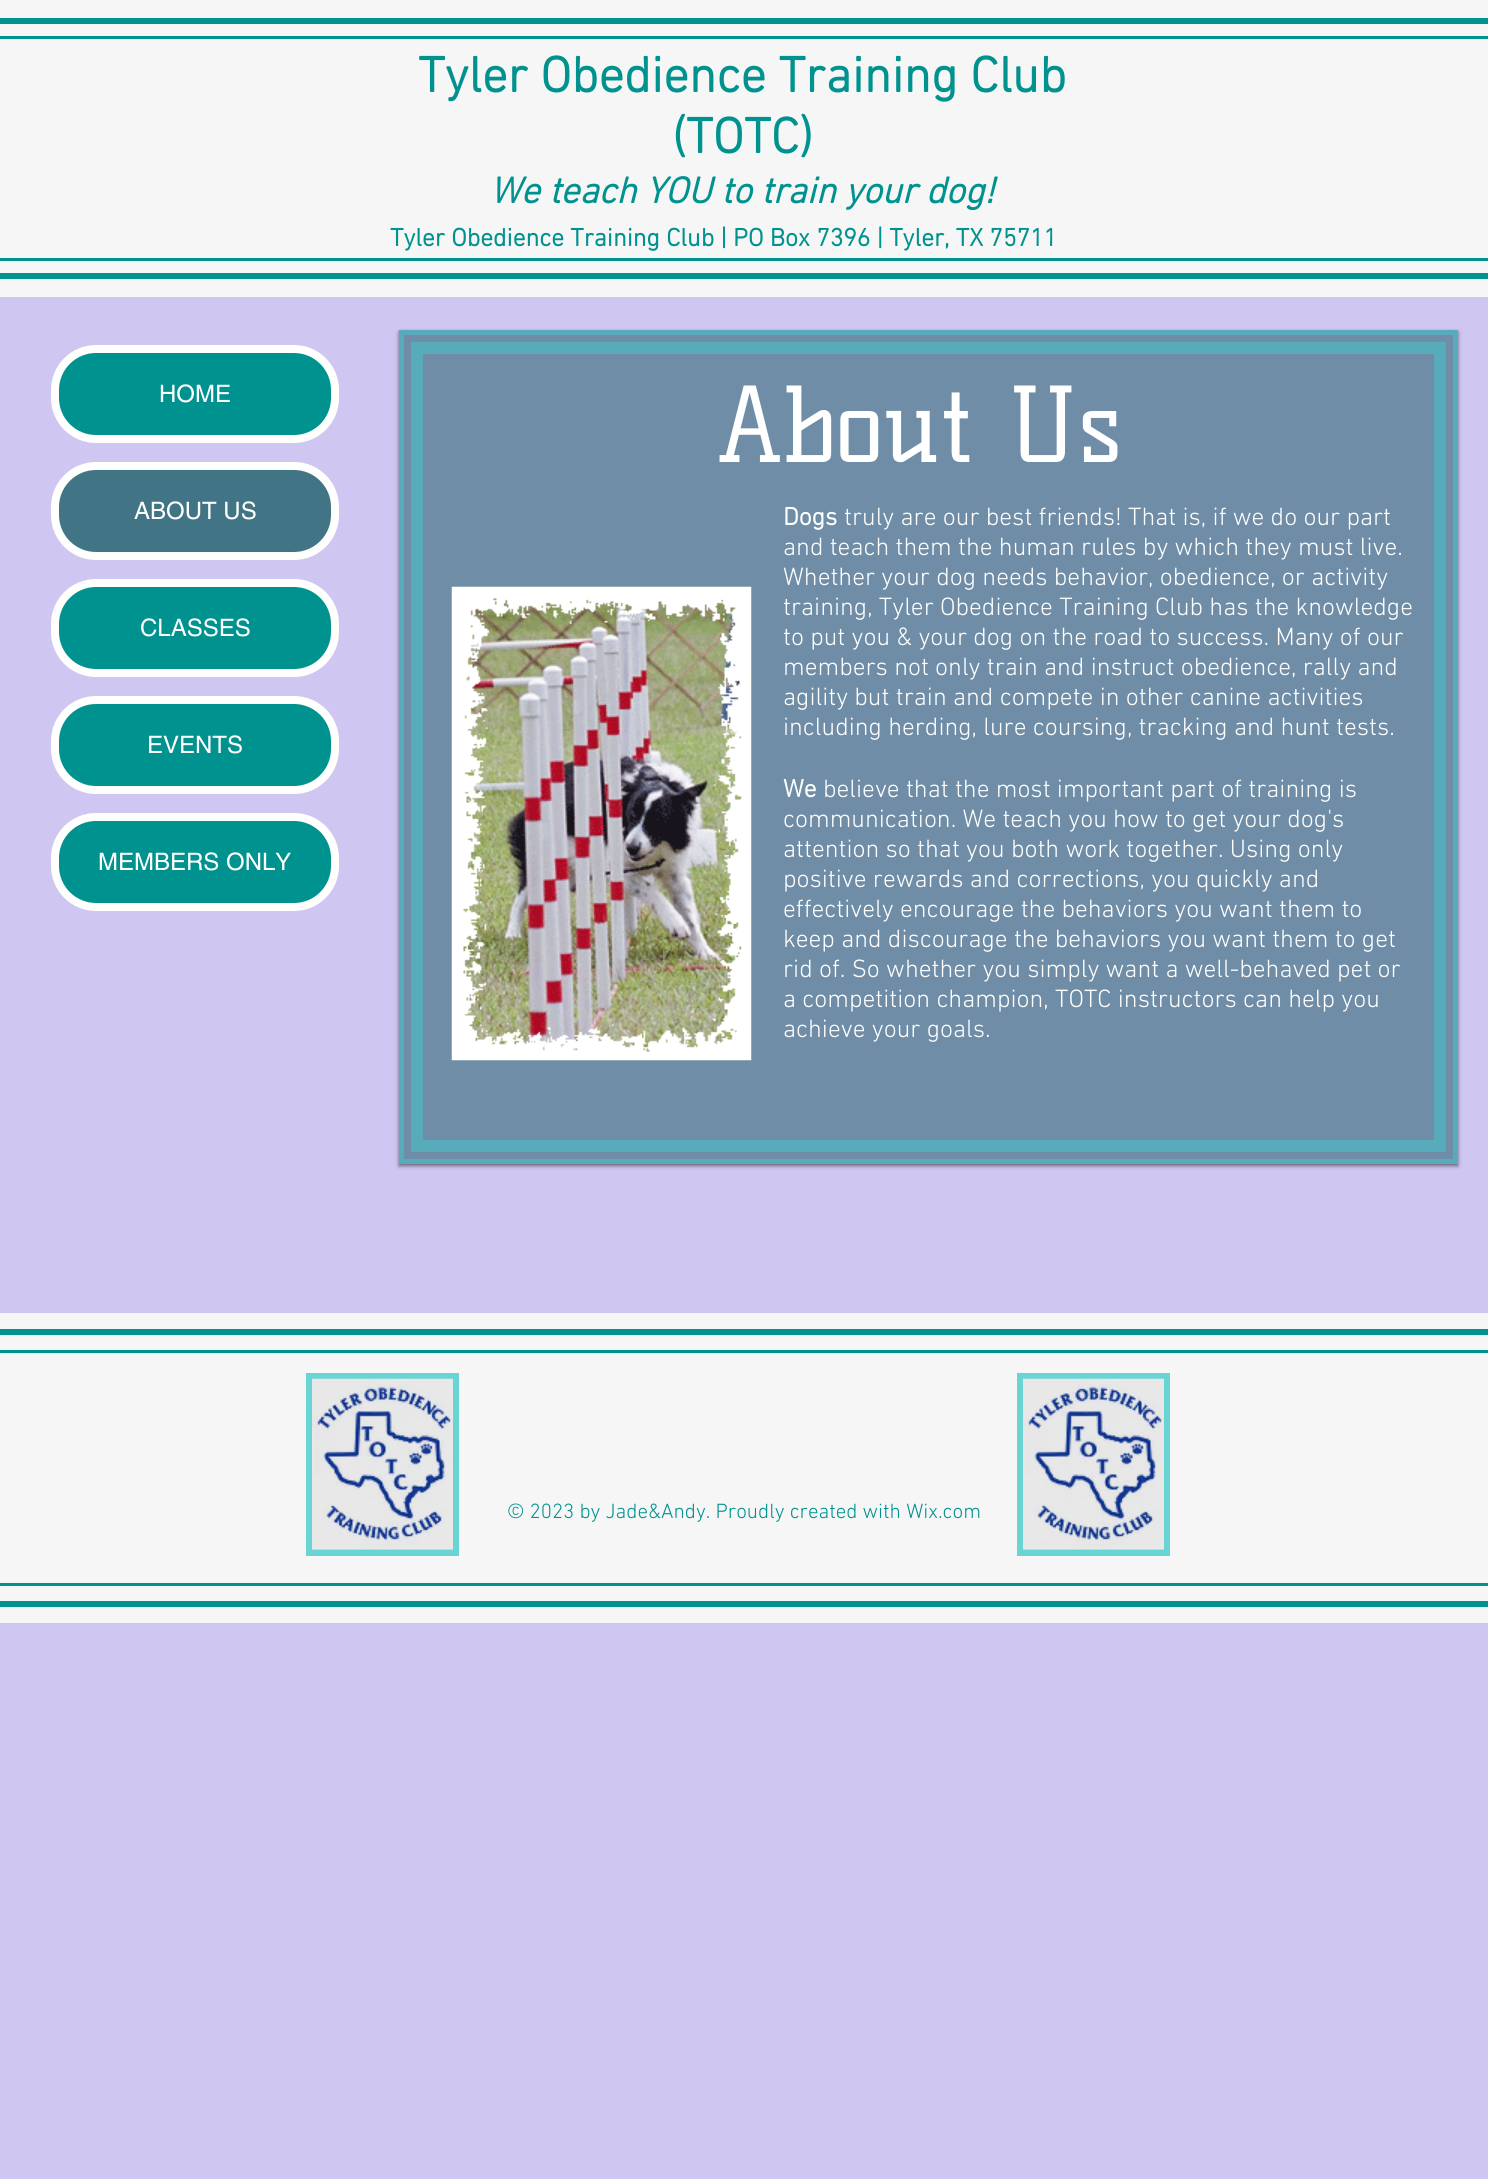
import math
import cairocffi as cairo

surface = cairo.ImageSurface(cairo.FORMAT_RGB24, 1488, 2179)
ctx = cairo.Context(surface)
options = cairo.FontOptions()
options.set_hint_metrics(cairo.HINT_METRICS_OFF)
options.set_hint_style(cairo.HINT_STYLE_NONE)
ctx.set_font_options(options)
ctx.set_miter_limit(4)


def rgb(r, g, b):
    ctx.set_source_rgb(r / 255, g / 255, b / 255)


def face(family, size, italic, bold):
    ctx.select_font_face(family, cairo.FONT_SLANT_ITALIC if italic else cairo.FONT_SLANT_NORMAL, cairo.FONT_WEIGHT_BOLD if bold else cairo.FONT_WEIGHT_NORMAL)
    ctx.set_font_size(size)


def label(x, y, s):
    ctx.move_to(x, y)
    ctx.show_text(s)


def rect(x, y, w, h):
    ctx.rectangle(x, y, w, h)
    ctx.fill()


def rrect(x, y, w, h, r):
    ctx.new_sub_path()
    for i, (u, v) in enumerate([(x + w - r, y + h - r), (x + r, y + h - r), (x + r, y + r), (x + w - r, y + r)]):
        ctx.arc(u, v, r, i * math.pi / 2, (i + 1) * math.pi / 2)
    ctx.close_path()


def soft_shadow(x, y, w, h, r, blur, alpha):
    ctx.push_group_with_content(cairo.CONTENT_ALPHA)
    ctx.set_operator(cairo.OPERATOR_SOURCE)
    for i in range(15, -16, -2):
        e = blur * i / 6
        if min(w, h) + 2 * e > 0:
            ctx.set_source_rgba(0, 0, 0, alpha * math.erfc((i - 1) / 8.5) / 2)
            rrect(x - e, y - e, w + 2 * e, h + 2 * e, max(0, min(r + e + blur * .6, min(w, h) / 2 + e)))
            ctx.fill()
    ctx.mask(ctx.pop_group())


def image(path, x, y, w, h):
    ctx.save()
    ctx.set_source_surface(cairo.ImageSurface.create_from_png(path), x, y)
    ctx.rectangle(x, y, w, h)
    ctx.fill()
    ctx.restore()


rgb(207, 199, 242)
ctx.paint()
rgb(246, 246, 246)
rect(0, 0, 1488, 297)
rgb(0, 146, 143)
rect(0, 18, 1488, 6)
rect(0, 273, 1488, 6)
rect(0, 36, 1488, 3)
rect(0, 258, 1488, 3)
face('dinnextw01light', 51, 0, 1)
label(418, 92, 'Tyler Obedience Training Club')
label(672, 153, '(TOTC)')
face('dinnextw01light', 37.5, 1, 1)
label(490, 203, 'We teach YOU to train your dog!')
face('dinnextw01light', 25.5, 0, 1)
label(390, 246, 'Tyler Obedience Training Club | PO Box 7396 | Tyler, TX 75711')
rrect(55, 349, 280, 90, 41)
ctx.fill_preserve()
rgb(255, 255, 254)
ctx.set_line_width(8)
ctx.stroke()
face('helvetica', 24, 0, 0)
rgb(255, 255, 255)
label(159, 402, 'HOME')
rgb(65, 117, 134)
rrect(55, 466, 280, 90, 41)
ctx.fill_preserve()
rgb(255, 255, 254)
ctx.stroke()
rgb(255, 255, 255)
label(134, 519, 'ABOUT US')
rgb(0, 146, 143)
rrect(55, 583, 280, 90, 41)
ctx.fill_preserve()
rgb(255, 255, 254)
ctx.stroke()
rgb(255, 255, 255)
label(140, 636, 'CLASSES')
rgb(0, 146, 143)
rrect(55, 700, 280, 90, 41)
ctx.fill_preserve()
rgb(255, 255, 254)
ctx.stroke()
rgb(255, 255, 255)
label(147, 753, 'EVENTS')
rgb(0, 146, 143)
rrect(55, 817, 280, 90, 41)
ctx.fill_preserve()
rgb(255, 255, 254)
ctx.stroke()
rgb(255, 255, 255)
label(98, 870, 'MEMBERS ONLY')
rgb(0, 0, 0)
soft_shadow(399, 332, 1059, 834, 0, 2, 0.5)
rgb(111, 141, 166)
ctx.rectangle(401.5, 332.5, 1054, 829)
ctx.fill_preserve()
rgb(88, 171, 186)
ctx.set_line_width(5)
ctx.stroke()
ctx.rectangle(417, 348, 1023, 798)
ctx.set_line_width(12)
ctx.stroke()
face('Kelly Slab', 102, 0, 0)
rgb(255, 255, 255)
label(717, 462, 'About Us')
image('image0.png', 451, 586, 301, 475)
face('dinnextw01light', 25.5, 0, 1)
label(783, 525, 'Dogs')
face('dinnextw01light Light', 25.5, 0, 0)
label(844, 525, 'truly are our best friends! That is, if we do our part')
label(783, 555, 'and teach them the human rules by which they must live.')
label(783, 585, 'Whether your dog needs behavior, obedience, or activity')
label(783, 615, 'training, Tyler Obedience Training Club has the knowledge')
label(783, 645, 'to put you & your dog on the road to success. Many of our')
label(783, 675, 'members not only train and instruct obedience, rally and')
label(783, 705, 'agility but train and compete in other canine activities')
label(783, 735, 'including herding, lure coursing, tracking and hunt tests.')
face('dinnextw01light', 25.5, 0, 1)
label(783, 797, 'We')
face('dinnextw01light Light', 25.5, 0, 0)
label(823, 797, 'believe that the most important part of training is')
label(783, 827, 'communication. We teach you how to get your dog\'s')
label(783, 857, 'attention so that you both work together. Using only')
label(783, 887, 'positive rewards and corrections, you quickly and')
label(783, 917, 'effectively encourage the behaviors you want them to')
label(783, 947, 'keep and discourage the behaviors you want them to get')
label(783, 977, 'rid of. So whether you simply want a well-behaved pet or')
label(783, 1007, 'a competition champion, TOTC instructors can help you')
label(783, 1037, 'achieve your goals.')
rgb(246, 246, 246)
rect(0, 1313, 1488, 310)
rgb(0, 146, 143)
rect(0, 1329, 1488, 6)
rect(0, 1601, 1488, 6)
rect(0, 1350, 1488, 3)
rect(0, 1583, 1488, 3)
rgb(157, 225, 224)
rect(312, 1549, 141, 1)
ctx.rectangle(309, 1376, 147, 177)
rgb(104, 212, 211)
ctx.set_line_width(6)
ctx.stroke()
image('image1.png', 312, 1378, 141, 172)
face('dinnextw01light Light', 21, 0, 0)
rgb(0, 146, 143)
label(507, 1518, '© 2023 by Jade&Andy. Proudly created with Wix.com')
rgb(157, 225, 224)
rect(1023, 1549, 141, 1)
ctx.rectangle(1020, 1376, 147, 177)
rgb(104, 212, 211)
ctx.stroke()
image('image1.png', 1023, 1378, 141, 172)
surface.write_to_png('render.png')
